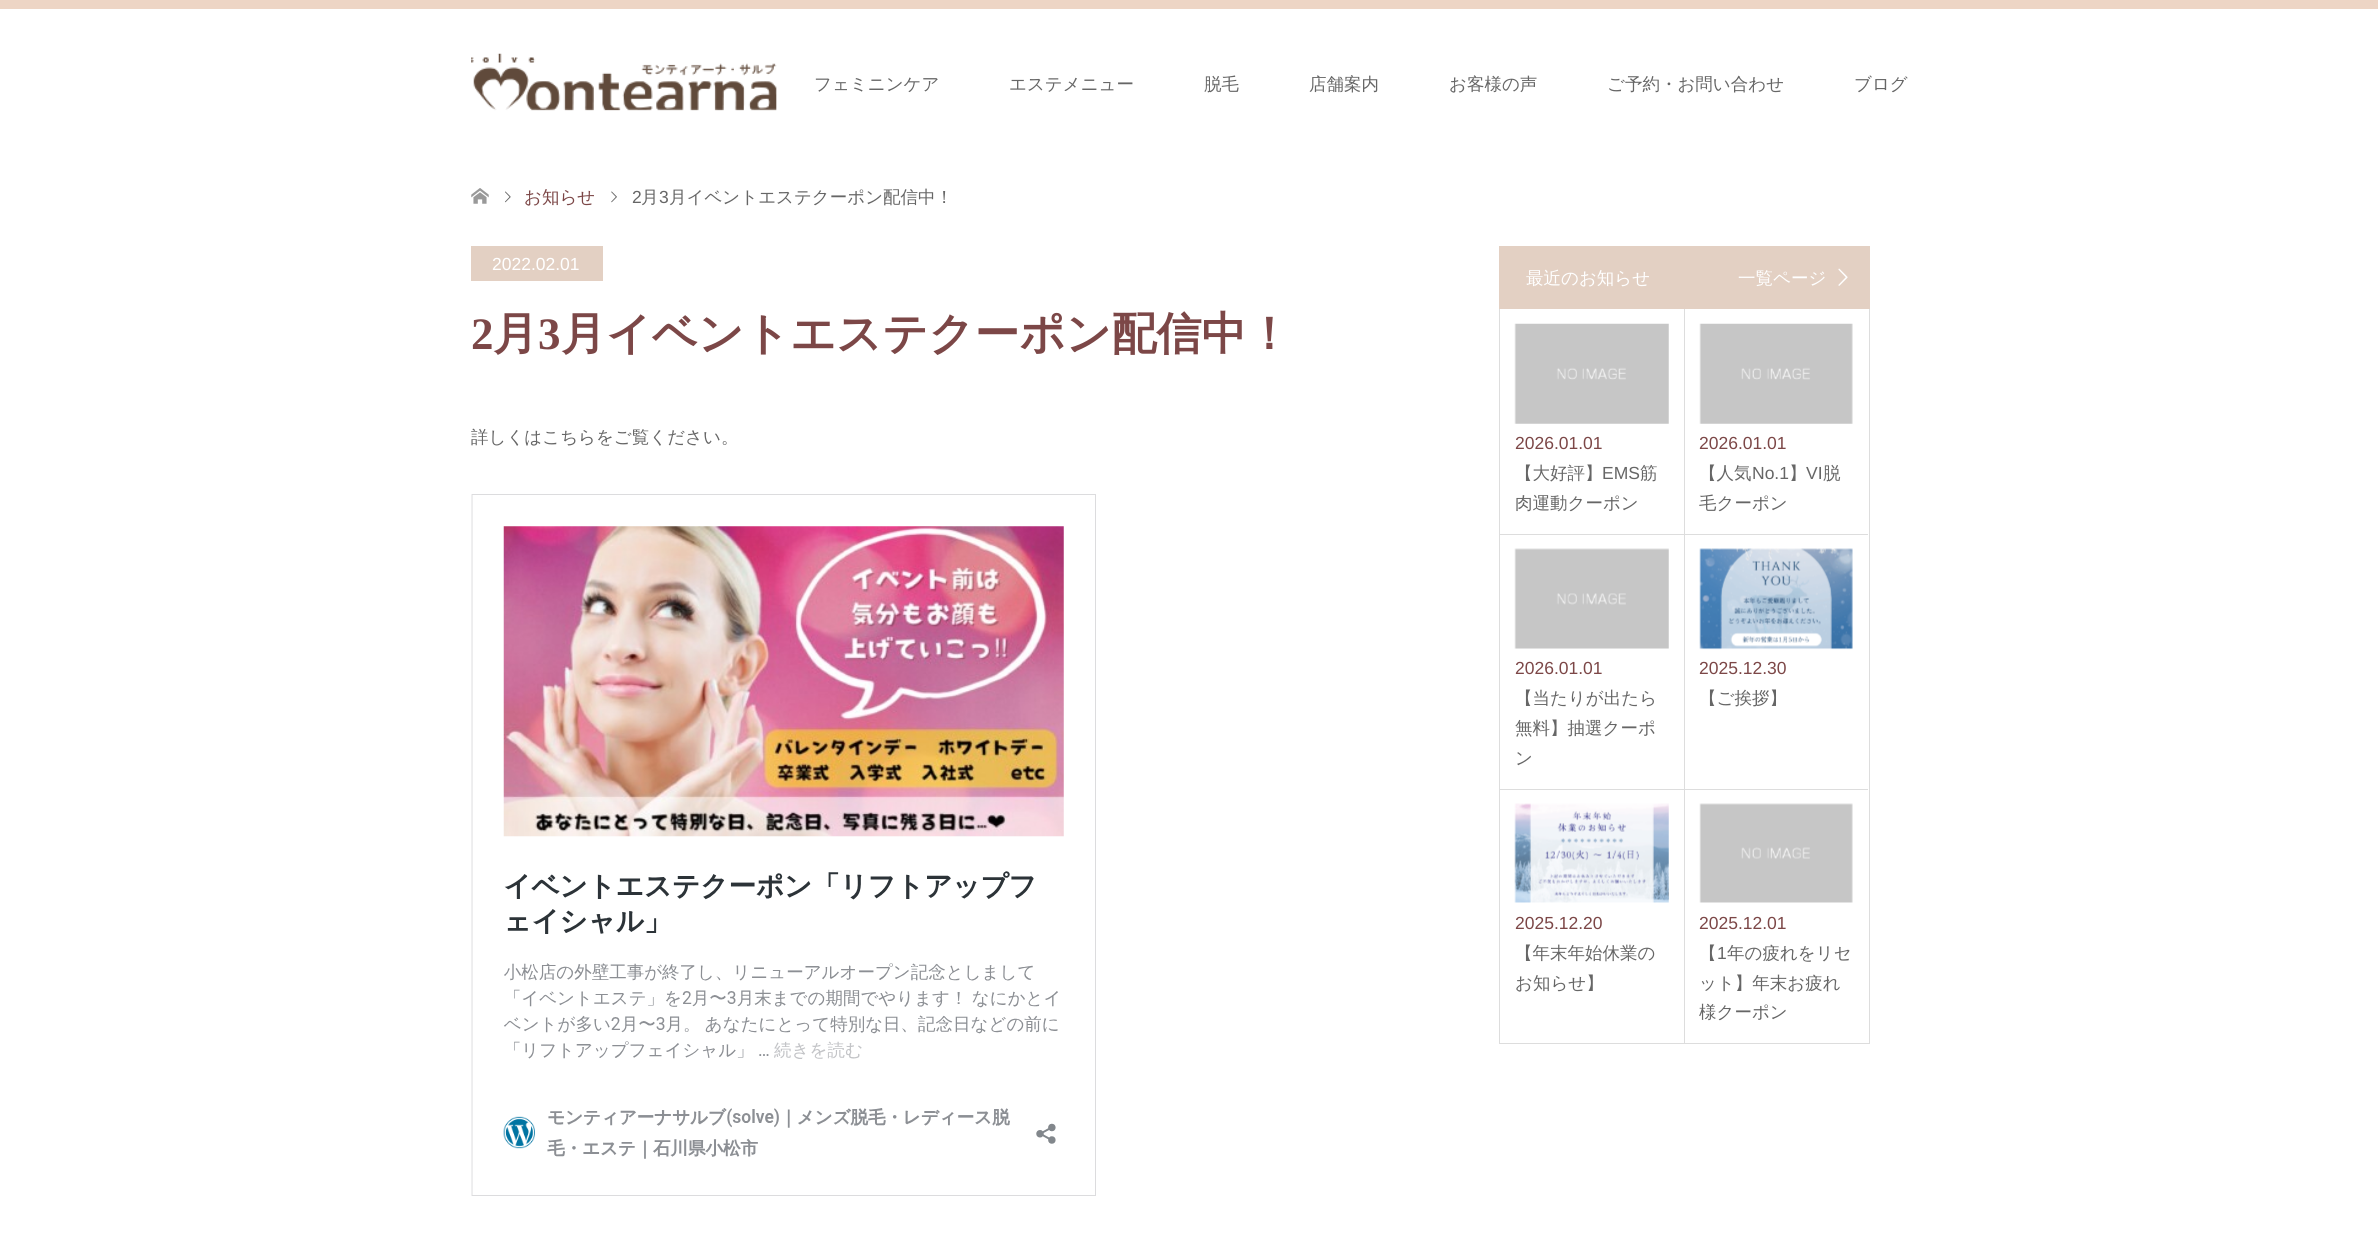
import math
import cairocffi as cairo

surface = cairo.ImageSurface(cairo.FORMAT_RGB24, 2378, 1238)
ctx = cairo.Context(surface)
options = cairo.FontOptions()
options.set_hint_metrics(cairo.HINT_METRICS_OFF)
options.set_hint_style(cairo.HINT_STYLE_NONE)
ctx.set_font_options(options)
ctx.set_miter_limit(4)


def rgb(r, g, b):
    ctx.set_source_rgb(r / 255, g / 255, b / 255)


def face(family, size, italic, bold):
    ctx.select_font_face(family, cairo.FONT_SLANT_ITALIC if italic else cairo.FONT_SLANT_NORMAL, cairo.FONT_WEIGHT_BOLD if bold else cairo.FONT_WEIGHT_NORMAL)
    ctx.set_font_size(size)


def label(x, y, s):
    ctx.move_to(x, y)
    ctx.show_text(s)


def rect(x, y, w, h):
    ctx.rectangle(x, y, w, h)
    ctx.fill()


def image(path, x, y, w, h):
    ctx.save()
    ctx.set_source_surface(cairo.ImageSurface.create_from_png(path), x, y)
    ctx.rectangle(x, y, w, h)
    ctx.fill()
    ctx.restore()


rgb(255, 255, 255)
ctx.paint()
rgb(237, 213, 197)
rect(0, 0, 2378, 9)
image('image0.png', 471, 53, 306, 58)
face('WenQuanYi Zen Hei Medium', 17.5, 0, 0)
rgb(102, 102, 102)
label(814, 90, 'フェミニンケア')
label(1009, 90, 'エステメニュー')
label(1204, 90, '脱毛')
label(1309, 90, '店舗案内')
label(1449, 90, 'お客様の声')
label(1607, 90, 'ご予約・お問い合わせ')
label(1854, 90, 'ブログ')
image('image1.png', 471, 188, 18, 16)
image('image2.png', 505, 191, 6, 12)
rgb(124, 71, 71)
label(524, 203, 'お知らせ')
image('image3.png', 611, 191, 6, 12)
face('Liberation Sans', 17.5, 0, 0)
rgb(102, 102, 102)
label(632, 203, '2')
face('WenQuanYi Zen Hei Medium', 17.5, 0, 0)
label(641, 203, '月')
face('Liberation Sans', 17.5, 0, 0)
label(659, 203, '3')
face('WenQuanYi Zen Hei Medium', 17.5, 0, 0)
label(669, 203, '月イベントエステクーポン配信中！')
rgb(227, 208, 195)
rect(471, 246, 132, 35)
face('Liberation Sans', 17.5, 0, 0)
rgb(255, 255, 255)
label(492, 270, '2022.02.01')
face('Liberation Serif', 45, 0, 1)
rgb(124, 71, 71)
label(471, 349, '2')
face('WenQuanYi Zen Hei', 45, 0, 1)
label(493, 349, '月')
face('Liberation Serif', 45, 0, 1)
label(538, 349, '3')
face('WenQuanYi Zen Hei', 45, 0, 1)
label(561, 349, '月イベントエステクーポン配信中！')
face('WenQuanYi Zen Hei Medium', 17.5, 0, 0)
rgb(102, 102, 102)
label(471, 443, '詳しくはこちらをご覧ください。')
image('image4.png', 471, 494, 625, 702)
rgb(227, 208, 195)
rect(1499, 246, 371, 63)
rgb(255, 255, 255)
label(1526, 284, '最近のお知らせ')
label(1738, 284, '一覧ページ')
image('image5.png', 1838, 268, 10, 18)
rgb(221, 221, 221)
rect(1869, 309, 1, 735)
rect(1499, 1043, 371, 1)
rect(1499, 309, 1, 735)
rect(1684, 309, 1, 226)
rect(1500, 534, 368, 1)
image('image6.png', 1514, 323, 155, 101)
face('Liberation Sans', 17.5, 0, 0)
rgb(124, 71, 71)
label(1515, 449, '2026.01.01')
face('WenQuanYi Zen Hei Medium', 17.5, 0, 0)
rgb(102, 102, 102)
label(1515, 479, '【大好評】')
face('Liberation Sans', 17.5, 0, 0)
label(1602, 479, 'EMS')
face('WenQuanYi Zen Hei Medium', 17.5, 0, 0)
label(1640, 479, '筋')
label(1515, 509, '肉運動クーポン')
image('image7.png', 1699, 323, 154, 101)
face('Liberation Sans', 17.5, 0, 0)
rgb(124, 71, 71)
label(1699, 449, '2026.01.01')
face('WenQuanYi Zen Hei Medium', 17.5, 0, 0)
rgb(102, 102, 102)
label(1699, 479, '【人気')
face('Liberation Sans', 17.5, 0, 0)
label(1752, 479, 'No.1')
face('WenQuanYi Zen Hei Medium', 17.5, 0, 0)
label(1789, 479, '】')
face('Liberation Sans', 17.5, 0, 0)
label(1806, 479, 'VI')
face('WenQuanYi Zen Hei Medium', 17.5, 0, 0)
label(1823, 479, '脱')
label(1699, 509, '毛クーポン')
rgb(221, 221, 221)
rect(1684, 534, 1, 256)
rect(1500, 789, 368, 1)
image('image8.png', 1514, 548, 155, 101)
face('Liberation Sans', 17.5, 0, 0)
rgb(124, 71, 71)
label(1515, 674, '2026.01.01')
face('WenQuanYi Zen Hei Medium', 17.5, 0, 0)
rgb(102, 102, 102)
label(1515, 704, '【当たりが出たら')
label(1515, 734, '無料】抽選クーポ')
label(1515, 764, 'ン')
image('image9.png', 1699, 548, 154, 102)
face('Liberation Sans', 17.5, 0, 0)
rgb(124, 71, 71)
label(1699, 674, '2025.12.30')
face('WenQuanYi Zen Hei Medium', 17.5, 0, 0)
rgb(102, 102, 102)
label(1699, 704, '【ご挨拶】')
rgb(221, 221, 221)
rect(1684, 789, 1, 255)
image('image10.png', 1514, 803, 155, 100)
face('Liberation Sans', 17.5, 0, 0)
rgb(124, 71, 71)
label(1515, 929, '2025.12.20')
face('WenQuanYi Zen Hei Medium', 17.5, 0, 0)
rgb(102, 102, 102)
label(1515, 959, '【年末年始休業の')
label(1515, 989, 'お知らせ】')
image('image11.png', 1699, 803, 154, 100)
face('Liberation Sans', 17.5, 0, 0)
rgb(124, 71, 71)
label(1699, 929, '2025.12.01')
face('WenQuanYi Zen Hei Medium', 17.5, 0, 0)
rgb(102, 102, 102)
label(1699, 959, '【')
face('Liberation Sans', 17.5, 0, 0)
label(1717, 959, '1')
face('WenQuanYi Zen Hei Medium', 17.5, 0, 0)
label(1727, 959, '年の疲れをリセ')
label(1699, 989, 'ット】年末お疲れ')
label(1699, 1018, '様クーポン')
surface.write_to_png('render.png')
